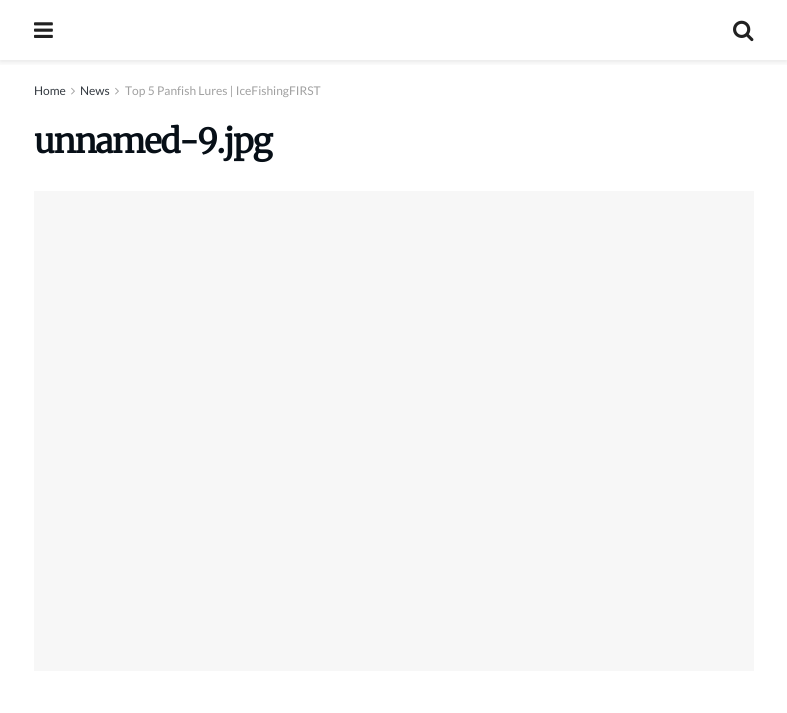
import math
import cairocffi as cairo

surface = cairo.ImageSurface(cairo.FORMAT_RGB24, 787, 713)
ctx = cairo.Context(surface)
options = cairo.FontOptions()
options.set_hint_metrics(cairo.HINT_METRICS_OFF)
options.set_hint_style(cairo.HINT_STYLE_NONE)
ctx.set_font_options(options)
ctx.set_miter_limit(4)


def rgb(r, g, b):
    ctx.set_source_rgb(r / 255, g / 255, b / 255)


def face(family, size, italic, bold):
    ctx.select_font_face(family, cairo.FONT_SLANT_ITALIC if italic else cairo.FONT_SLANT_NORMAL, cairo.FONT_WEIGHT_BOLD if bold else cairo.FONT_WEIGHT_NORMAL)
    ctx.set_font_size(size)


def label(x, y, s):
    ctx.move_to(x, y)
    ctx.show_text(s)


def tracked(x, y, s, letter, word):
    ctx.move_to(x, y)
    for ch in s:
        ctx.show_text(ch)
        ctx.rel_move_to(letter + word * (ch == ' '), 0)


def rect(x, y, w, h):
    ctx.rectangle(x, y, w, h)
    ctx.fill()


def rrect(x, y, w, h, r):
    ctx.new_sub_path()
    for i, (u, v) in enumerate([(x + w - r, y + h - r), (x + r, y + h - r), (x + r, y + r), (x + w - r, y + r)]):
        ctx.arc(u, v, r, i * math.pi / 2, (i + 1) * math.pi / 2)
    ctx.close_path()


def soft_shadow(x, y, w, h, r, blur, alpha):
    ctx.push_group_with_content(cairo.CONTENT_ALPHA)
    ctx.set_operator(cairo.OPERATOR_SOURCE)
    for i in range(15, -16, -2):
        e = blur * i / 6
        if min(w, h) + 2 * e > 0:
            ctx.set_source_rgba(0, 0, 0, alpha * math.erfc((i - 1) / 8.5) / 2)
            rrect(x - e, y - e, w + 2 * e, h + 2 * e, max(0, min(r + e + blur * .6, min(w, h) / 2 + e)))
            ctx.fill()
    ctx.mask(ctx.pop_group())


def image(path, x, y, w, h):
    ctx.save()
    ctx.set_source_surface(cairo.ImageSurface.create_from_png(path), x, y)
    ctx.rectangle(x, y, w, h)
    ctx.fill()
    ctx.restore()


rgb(255, 255, 255)
ctx.paint()
ctx.save()
ctx.rectangle(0, 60, 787, 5)
ctx.clip()
rgb(0, 0, 0)
soft_shadow(0, 2, 787, 60, 0, 3, 0.1)
ctx.restore()
image('image0.png', 34, 22, 19, 16)
image('image1.png', 733, 20, 21, 22)
face('Lato', 12, 0, 0)
rgb(52, 58, 65)
label(34, 95, 'Home')
image('image2.png', 71, 87, 4, 8)
label(80, 95, 'News')
image('image2.png', 115, 87, 4, 8)
rgb(160, 160, 160)
label(125, 95, 'Top 5 Panfish Lures | IceFishingFIRST')
face('Merriweather', 33.5, 0, 1)
rgb(7, 15, 23)
tracked(34, 153, 'unnamed-9.jpg', -1.3, 0)
rgb(247, 247, 247)
rect(34, 191, 720, 480)
surface.write_to_png('render.png')
